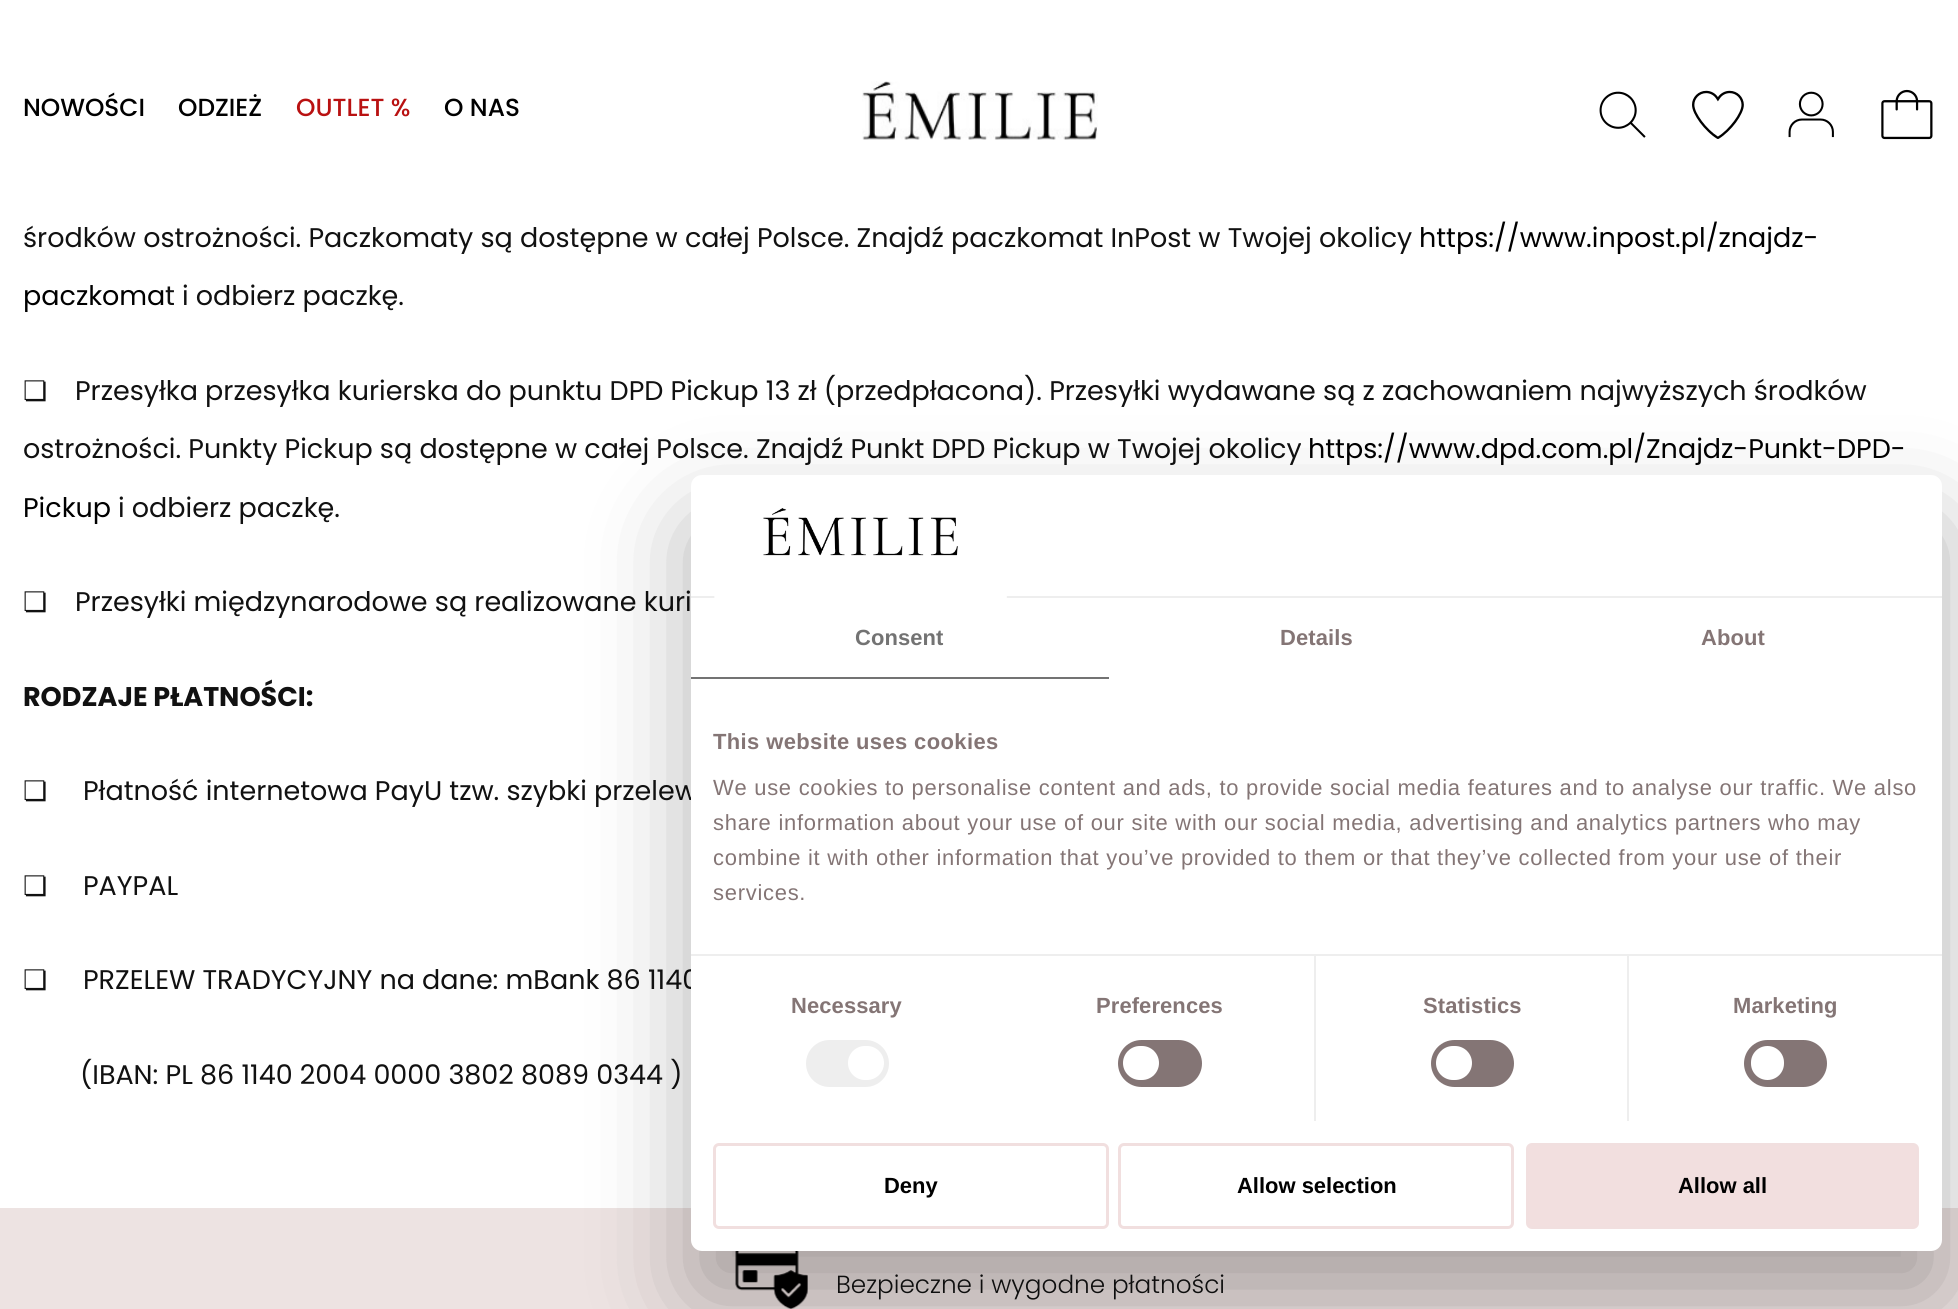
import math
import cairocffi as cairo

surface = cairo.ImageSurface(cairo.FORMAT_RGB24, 1958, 1309)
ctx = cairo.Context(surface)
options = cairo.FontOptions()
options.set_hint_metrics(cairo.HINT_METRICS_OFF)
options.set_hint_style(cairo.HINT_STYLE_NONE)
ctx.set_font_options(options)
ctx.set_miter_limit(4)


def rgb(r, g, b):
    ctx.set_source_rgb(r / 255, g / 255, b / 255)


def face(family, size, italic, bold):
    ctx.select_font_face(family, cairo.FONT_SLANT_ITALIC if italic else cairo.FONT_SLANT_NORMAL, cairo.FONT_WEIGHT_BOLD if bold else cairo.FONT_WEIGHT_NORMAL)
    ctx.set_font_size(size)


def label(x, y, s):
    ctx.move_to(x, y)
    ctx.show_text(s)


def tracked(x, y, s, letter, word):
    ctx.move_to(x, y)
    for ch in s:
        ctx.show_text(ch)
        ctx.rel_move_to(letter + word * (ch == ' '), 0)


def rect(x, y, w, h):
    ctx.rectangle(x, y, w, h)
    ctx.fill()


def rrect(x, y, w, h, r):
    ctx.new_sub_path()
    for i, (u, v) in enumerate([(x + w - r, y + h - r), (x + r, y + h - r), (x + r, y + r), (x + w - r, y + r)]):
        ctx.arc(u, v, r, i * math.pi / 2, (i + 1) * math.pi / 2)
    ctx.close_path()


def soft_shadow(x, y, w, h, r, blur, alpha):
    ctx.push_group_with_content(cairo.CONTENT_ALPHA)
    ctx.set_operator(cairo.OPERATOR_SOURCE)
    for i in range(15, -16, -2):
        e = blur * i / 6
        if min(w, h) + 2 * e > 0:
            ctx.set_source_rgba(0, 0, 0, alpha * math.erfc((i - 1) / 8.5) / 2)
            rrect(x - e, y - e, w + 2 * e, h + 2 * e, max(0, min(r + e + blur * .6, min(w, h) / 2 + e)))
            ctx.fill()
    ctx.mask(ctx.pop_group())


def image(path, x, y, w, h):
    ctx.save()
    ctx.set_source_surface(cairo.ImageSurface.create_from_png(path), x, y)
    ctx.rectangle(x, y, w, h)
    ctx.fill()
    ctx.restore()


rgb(255, 255, 255)
ctx.paint()
face('Poppins Medium', 24.75, 0, 0)
rgb(0, 0, 0)
label(23, 116, 'NOWOŚCI')
label(178, 116, 'ODZIEŻ')
rgb(185, 17, 17)
label(296, 116, 'OUTLET %')
rgb(0, 0, 0)
label(444, 116, 'O NAS')
image('image0.png', 862, 81, 236, 59)
image('image1.png', 1599, 91, 47, 47)
image('image2.png', 1692, 90, 52, 49)
image('image3.png', 1788, 91, 46, 47)
image('image4.png', 1881, 89, 52, 51)
face('Poppins', 27, 0, 0)
rgb(17, 17, 17)
label(23, 247, 'środków ostrożności. Paczkomaty są dostępne w całej Polsce. Znajdź paczkomat InPost w Twojej okolicy')
rgb(0, 0, 0)
label(1419, 247, 'https://www.inpost.pl/znajdz-')
label(23, 305, 'paczkoma')
rgb(17, 17, 17)
label(165, 305, 't i odbierz paczkę.')
face('DejaVu Sans', 27, 0, 0)
label(23, 400, '❏')
face('Poppins', 27, 0, 0)
label(75, 400, 'Przesyłka przesyłka kurierska do punktu DPD Pickup 13 zł (przedpłacona). Przesyłki wydawane są z zachowaniem najwyższych środków')
label(23, 458, 'ostrożności. Punkty Pickup są dostępne w całej Polsce. Znajdź Punkt DPD Pickup w Twojej okolicy')
rgb(0, 0, 0)
label(1308, 458, 'https://www.dpd.com.pl/Znajdz-Punkt-DPD-')
label(23, 517, 'Pickup')
rgb(17, 17, 17)
label(118, 517, 'i odbierz paczkę.')
face('DejaVu Sans', 27, 0, 0)
label(23, 611, '❏')
face('Poppins', 27, 0, 0)
label(75, 611, 'Przesyłki międzynarodowe są realizowane kuri')
face('Poppins', 27, 0, 1)
label(23, 706, 'RODZAJE PŁATNOŚCI:')
face('DejaVu Sans', 27, 0, 0)
label(23, 800, '❏')
face('Poppins', 27, 0, 0)
label(83, 800, 'Płatność internetowa PayU tzw. szybki przelew')
face('DejaVu Sans', 27, 0, 0)
label(23, 895, '❏')
face('Poppins', 27, 0, 0)
label(83, 895, 'PAYPAL')
face('DejaVu Sans', 27, 0, 0)
label(23, 989, '❏')
face('Poppins', 27, 0, 0)
label(83, 989, 'PRZELEW TRADYCYJNY na dane: mBank 86 1140')
label(80, 1084, '(IBAN: PL 86 1140 2004 0000 3802 8089 0344 )')
rgb(237, 227, 226)
rect(0, 1208, 1958, 101)
image('image5.png', 735, 1251, 73, 58)
face('Poppins Light', 24.75, 0, 0)
rgb(17, 17, 17)
label(836, 1293, 'Bezpieczne i wygodne płatności')
rgb(0, 0, 0)
soft_shadow(691, 522, 1251, 776, 11, 49.5, 0.3)
rgb(255, 255, 255)
rrect(691, 475, 1251, 776, 11)
ctx.fill()
rgb(238, 238, 238)
rect(691, 596, 1251, 2)
image('image6.png', 714, 508, 293, 90)
rgb(115, 115, 115)
rect(691, 677, 418, 2)
face('Liberation Sans', 21.95, 0, 1)
tracked(855, 645, 'Consent', 0.1, 0)
rgb(132, 117, 117)
tracked(1280, 645, 'Details', 0.1, 0)
tracked(1701, 645, 'About', 0.1, 0)
rgb(238, 238, 238)
rect(691, 954, 1251, 2)
rgb(132, 117, 117)
tracked(713, 749, 'This website uses cookies', 0.4, 0)
face('Liberation Sans', 21.95, 0, 0)
tracked(713, 795, 'We use cookies to personalise content and ads, to provide social media features and to analyse our traffic. We also', 0.73, 0)
tracked(713, 830, 'share information about your use of our site with our social media, advertising and analytics partners who may', 0.73, 0)
tracked(713, 865, 'combine it with other information that you’ve provided to them or that they’ve collected from your use of their', 0.73, 0)
tracked(713, 900, 'services.', 0.73, 0)
face('Liberation Sans', 21.95, 0, 1)
tracked(791, 1013, 'Necessary', 0.1, 0)
rgb(238, 238, 238)
rrect(806, 1040, 83, 47, 23.5)
ctx.fill()
rgb(255, 255, 255)
rrect(848, 1046, 36, 34, 17)
ctx.fill()
rgb(238, 238, 238)
rect(1314, 956, 2, 165)
rgb(132, 117, 117)
tracked(1096, 1013, 'Preferences', 0.1, 0)
rrect(1118, 1040, 84, 47, 23.5)
ctx.fill()
rgb(255, 255, 255)
rrect(1123, 1046, 36, 34, 17)
ctx.fill()
rgb(238, 238, 238)
rect(1627, 956, 2, 165)
rgb(132, 117, 117)
tracked(1423, 1013, 'Statistics', 0.1, 0)
rrect(1431, 1040, 83, 47, 23.5)
ctx.fill()
rgb(255, 255, 255)
rrect(1436, 1046, 36, 34, 17)
ctx.fill()
rgb(132, 117, 117)
tracked(1733, 1013, 'Marketing', 0.1, 0)
rrect(1744, 1040, 83, 47, 23.5)
ctx.fill()
rgb(255, 255, 255)
rrect(1751, 1046, 33, 34, 16.5)
ctx.fill()
rrect(714.5, 1144.5, 393, 83, 4.5)
rgb(241, 223, 223)
ctx.set_line_width(3)
ctx.stroke()
rgb(0, 0, 0)
label(884, 1193, 'Deny')
rrect(1119.5, 1144.5, 393, 83, 4.5)
rgb(241, 223, 223)
ctx.stroke()
rgb(0, 0, 0)
label(1237, 1193, 'Allow selection')
rgb(242, 223, 223)
rrect(1527.5, 1144.5, 390, 83, 4.5)
ctx.fill_preserve()
rgb(241, 223, 223)
ctx.stroke()
rgb(0, 0, 0)
label(1678, 1193, 'Allow all')
surface.write_to_png('render.png')
